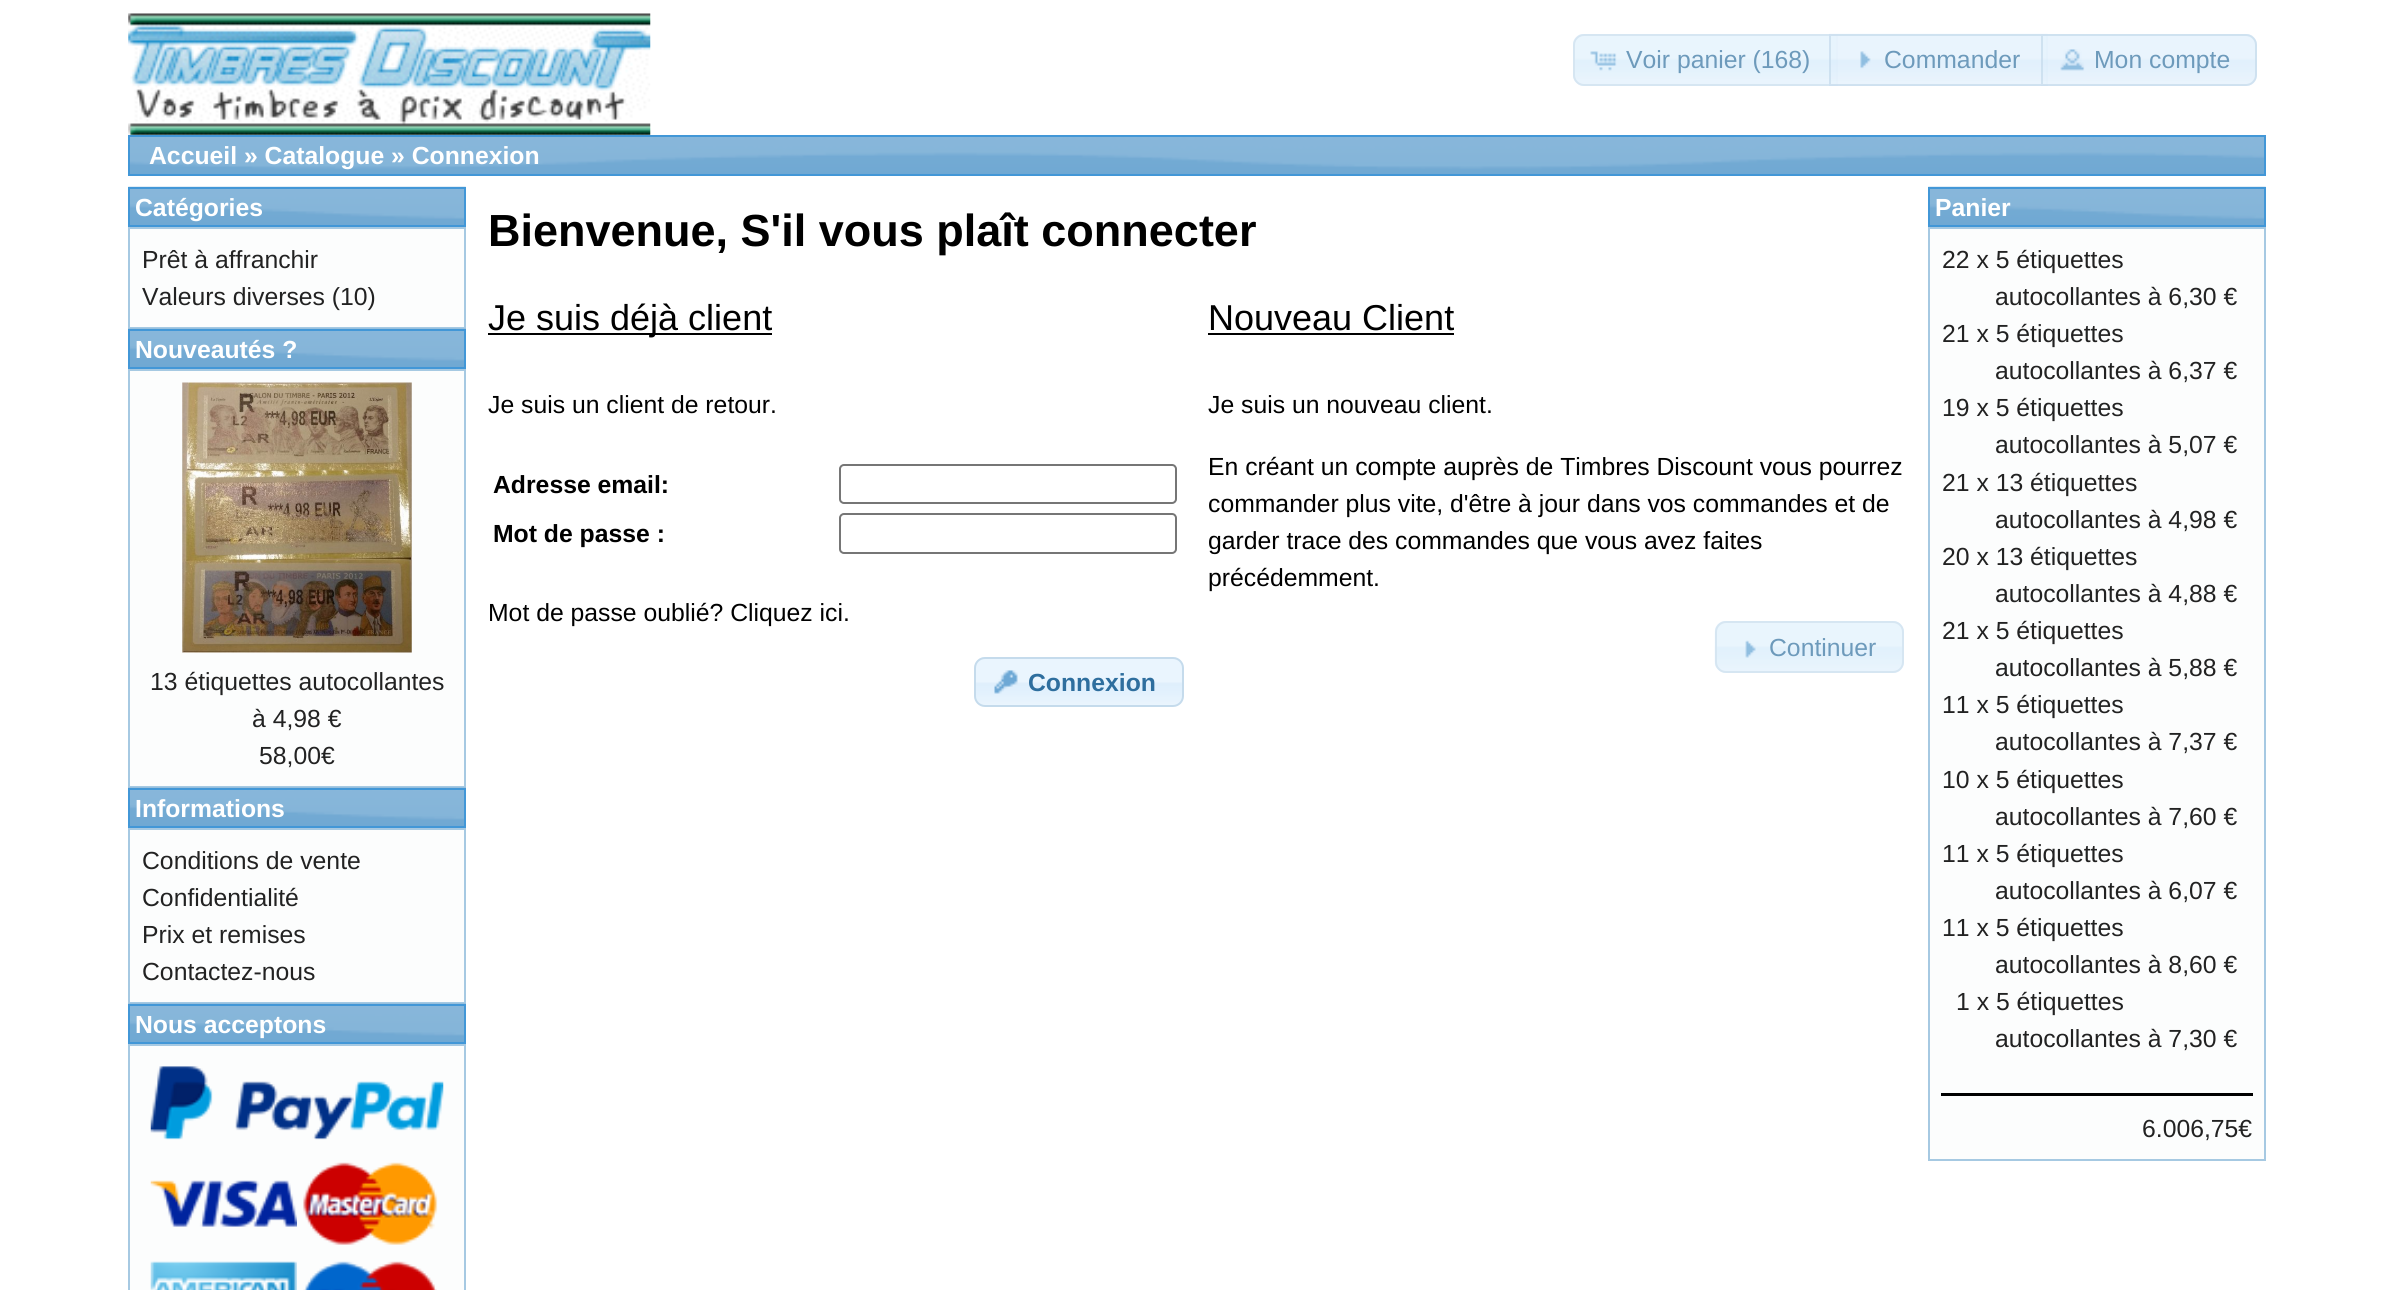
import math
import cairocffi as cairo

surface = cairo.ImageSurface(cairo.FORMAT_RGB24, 2394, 1290)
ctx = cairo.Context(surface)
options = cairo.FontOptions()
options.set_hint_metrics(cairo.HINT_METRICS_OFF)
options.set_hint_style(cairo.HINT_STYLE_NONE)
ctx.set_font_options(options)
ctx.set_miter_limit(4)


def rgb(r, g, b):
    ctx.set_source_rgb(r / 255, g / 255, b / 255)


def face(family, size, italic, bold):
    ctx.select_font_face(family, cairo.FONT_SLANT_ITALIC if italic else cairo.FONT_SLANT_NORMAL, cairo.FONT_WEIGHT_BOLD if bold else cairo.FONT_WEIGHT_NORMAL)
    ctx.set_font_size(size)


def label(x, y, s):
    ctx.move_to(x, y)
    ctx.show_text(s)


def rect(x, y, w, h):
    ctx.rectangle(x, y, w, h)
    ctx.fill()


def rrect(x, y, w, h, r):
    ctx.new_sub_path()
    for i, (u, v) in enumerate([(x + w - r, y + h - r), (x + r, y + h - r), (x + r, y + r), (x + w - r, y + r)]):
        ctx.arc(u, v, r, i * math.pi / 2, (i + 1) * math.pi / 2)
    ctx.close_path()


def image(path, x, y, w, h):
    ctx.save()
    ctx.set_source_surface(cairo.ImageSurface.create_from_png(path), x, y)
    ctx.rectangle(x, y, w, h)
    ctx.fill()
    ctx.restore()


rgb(255, 255, 255)
ctx.paint()
image('image0.png', 128, 13, 523, 122)
rgb(233, 244, 253)
ctx.new_path()
ctx.move_to(1584, 34)
ctx.line_to(1838, 34)
ctx.line_to(1838, 86)
ctx.line_to(1584, 86)
ctx.curve_to(1578, 86, 1573, 81, 1573, 75)
ctx.line_to(1573, 45)
ctx.curve_to(1573, 39, 1578, 34, 1584, 34)
ctx.close_path()
ctx.fill()
image('image1.png', 1573, 34, 263, 45)
ctx.new_path()
ctx.move_to(1584, 35)
ctx.line_to(1837, 35)
ctx.line_to(1837, 85)
ctx.line_to(1584, 85)
ctx.curve_to(1578.5, 85, 1574, 80.5, 1574, 75)
ctx.line_to(1574, 45)
ctx.curve_to(1574, 39.5, 1578.5, 35, 1584, 35)
ctx.close_path()
rgb(214, 230, 242)
ctx.stroke()
image('image2.png', 1590, 51, 27, 20)
face('Liberation Sans', 24.75, 0, 0)
rgb(109, 154, 187)
label(1626, 68, 'Voir panier (168)')
ctx.set_source_rgba(0.875, 0.937, 0.988, 0.7)
rect(1829, 34, 219, 52)
image('image3.png', 1829, 33, 219, 53)
ctx.rectangle(1830, 35, 217, 50)
ctx.set_source_rgba(0.773, 0.859, 0.925, 0.7)
ctx.stroke()
image('image4.png', 1860, 51, 11, 18)
rgb(109, 154, 187)
label(1884, 68, 'Commander')
ctx.set_source_rgba(0.875, 0.937, 0.988, 0.7)
ctx.new_path()
ctx.move_to(2041, 34)
ctx.line_to(2246, 34)
ctx.curve_to(2252, 34, 2257, 39, 2257, 45)
ctx.line_to(2257, 75)
ctx.curve_to(2257, 81, 2252, 86, 2246, 86)
ctx.line_to(2041, 86)
ctx.close_path()
ctx.fill()
image('image5.png', 2041, 34, 216, 51)
ctx.new_path()
ctx.move_to(2042, 35)
ctx.line_to(2246, 35)
ctx.curve_to(2251.5, 35, 2256, 39.5, 2256, 45)
ctx.line_to(2256, 75)
ctx.curve_to(2256, 80.5, 2251.5, 85, 2246, 85)
ctx.line_to(2042, 85)
ctx.close_path()
ctx.set_source_rgba(0.773, 0.859, 0.925, 0.7)
ctx.stroke()
image('image6.png', 2060, 49, 25, 22)
rgb(109, 154, 187)
label(2094, 68, 'Mon compte')
image('image7.png', 130, 137, 2134, 37)
ctx.rectangle(129, 136, 2136, 39)
rgb(66, 151, 215)
ctx.stroke()
face('Liberation Sans', 24.75, 0, 1)
rgb(255, 255, 255)
label(149, 164, 'Accueil » Catalogue » Connexion')
image('image8.png', 128, 186, 338, 39)
ctx.rectangle(129, 188, 336, 38)
rgb(66, 151, 215)
ctx.stroke()
rgb(255, 255, 255)
label(135, 216, 'Catégories')
rgb(252, 253, 253)
ctx.rectangle(129, 228, 336, 100)
ctx.fill_preserve()
rgb(166, 201, 226)
ctx.stroke()
face('Liberation Sans', 24.75, 0, 0)
rgb(34, 34, 34)
label(142, 268, 'Prêt à affranchir')
label(142, 305, 'Valeurs diverses (10)')
image('image9.png', 128, 328, 338, 39)
ctx.rectangle(129, 330, 336, 38)
rgb(66, 151, 215)
ctx.stroke()
face('Liberation Sans', 24.75, 0, 1)
rgb(255, 255, 255)
label(135, 358, 'Nouveautés ?')
rgb(252, 253, 253)
ctx.rectangle(129, 370, 336, 417)
ctx.fill_preserve()
rgb(166, 201, 226)
ctx.stroke()
image('image10.png', 182, 382, 230, 271)
face('Liberation Sans', 24.75, 0, 0)
rgb(34, 34, 34)
label(150, 690, '13 étiquettes autocollantes')
label(252, 727, 'à 4,98 €')
label(259, 764, '58,00€')
image('image9.png', 128, 787, 338, 39)
ctx.rectangle(129, 789, 336, 38)
rgb(66, 151, 215)
ctx.stroke()
face('Liberation Sans', 24.75, 0, 1)
rgb(255, 255, 255)
label(135, 817, 'Informations')
rgb(252, 253, 253)
ctx.rectangle(129, 829, 336, 174)
ctx.fill_preserve()
rgb(166, 201, 226)
ctx.stroke()
face('Liberation Sans', 24.75, 0, 0)
rgb(34, 34, 34)
label(142, 869, 'Conditions de vente')
label(142, 906, 'Confidentialité')
label(142, 943, 'Prix et remises')
label(142, 980, 'Contactez-nous')
image('image9.png', 128, 1003, 338, 39)
ctx.rectangle(129, 1005, 336, 38)
rgb(66, 151, 215)
ctx.stroke()
face('Liberation Sans', 24.75, 0, 1)
rgb(255, 255, 255)
label(135, 1033, 'Nous acceptons')
rgb(252, 253, 253)
ctx.rectangle(129, 1045, 336, 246)
ctx.fill_preserve()
rgb(166, 201, 226)
ctx.stroke()
image('image11.png', 150, 1066, 294, 74)
image('image12.png', 150, 1180, 147, 47)
image('image13.png', 303, 1162, 135, 83)
image('image14.png', 150, 1261, 147, 29)
image('image15.png', 303, 1261, 134, 29)
face('Liberation Sans', 45, 0, 1)
rgb(0, 0, 0)
label(488, 246, 'Bienvenue, S\'il vous plaît connecter')
rect(488, 333, 284, 2)
face('Liberation Sans', 36, 0, 0)
label(488, 330, 'Je suis déjà client')
face('Liberation Sans', 24.75, 0, 0)
label(488, 413, 'Je suis un client de retour.')
face('Liberation Sans', 24.75, 0, 1)
label(493, 493, 'Adresse email:')
rrect(840, 465, 336, 38, 4)
rgb(118, 118, 118)
ctx.stroke()
rgb(0, 0, 0)
label(493, 542, 'Mot de passe :')
rrect(840, 514, 336, 39, 4)
rgb(118, 118, 118)
ctx.stroke()
face('Liberation Sans', 24.75, 0, 0)
rgb(0, 0, 0)
label(488, 621, 'Mot de passe oublié? Cliquez ici.')
image('image16.png', 974, 657, 209, 49)
rrect(975, 658, 208, 48, 10)
rgb(197, 219, 236)
ctx.stroke()
image('image17.png', 994, 670, 24, 24)
face('Liberation Sans', 24.75, 0, 1)
rgb(46, 110, 158)
label(1028, 691, 'Connexion')
face('Liberation Sans', 36, 0, 0)
rgb(0, 0, 0)
label(1208, 330, 'Nouveau Client')
rect(1208, 333, 246, 2)
face('Liberation Sans', 24.75, 0, 0)
label(1208, 413, 'Je suis un nouveau client.')
label(1208, 475, 'En créant un compte auprès de Timbres Discount vous pourrez')
label(1208, 512, 'commander plus vite, d\'être à jour dans vos commandes et de')
label(1208, 549, 'garder trace des commandes que vous avez faites')
label(1208, 586, 'précédemment.')
rgb(233, 244, 253)
rrect(1715, 621, 189, 52, 11)
ctx.fill()
image('image18.png', 1714, 621, 189, 47)
rrect(1716, 622, 187, 50, 10)
rgb(214, 230, 242)
ctx.stroke()
image('image19.png', 1745, 640, 11, 18)
rgb(109, 154, 187)
label(1769, 656, 'Continuer')
image('image8.png', 1928, 186, 338, 39)
ctx.rectangle(1929, 188, 336, 38)
rgb(66, 151, 215)
ctx.stroke()
face('Liberation Sans', 24.75, 0, 1)
rgb(255, 255, 255)
label(1935, 216, 'Panier')
rgb(252, 253, 253)
ctx.rectangle(1929, 228, 336, 932)
ctx.fill_preserve()
rgb(166, 201, 226)
ctx.stroke()
face('Liberation Sans', 24.75, 0, 0)
rgb(34, 34, 34)
label(1942, 268, '22 x 5 étiquettes')
label(1995, 305, 'autocollantes à 6,30 €')
label(1942, 342, '21 x 5 étiquettes')
label(1995, 379, 'autocollantes à 6,37 €')
label(1942, 416, '19 x 5 étiquettes')
label(1995, 453, 'autocollantes à 5,07 €')
label(1942, 491, '21 x 13 étiquettes')
label(1995, 528, 'autocollantes à 4,98 €')
label(1942, 565, '20 x 13 étiquettes')
label(1995, 602, 'autocollantes à 4,88 €')
label(1942, 639, '21 x 5 étiquettes')
label(1995, 676, 'autocollantes à 5,88 €')
label(1942, 713, '11 x 5 étiquettes')
label(1995, 750, 'autocollantes à 7,37 €')
label(1942, 788, '10 x 5 étiquettes')
label(1995, 825, 'autocollantes à 7,60 €')
label(1942, 862, '11 x 5 étiquettes')
label(1995, 899, 'autocollantes à 6,07 €')
label(1942, 936, '11 x 5 étiquettes')
label(1995, 973, 'autocollantes à 8,60 €')
label(1956, 1010, '1 x 5 étiquettes')
label(1995, 1047, 'autocollantes à 7,30 €')
rgb(0, 0, 0)
rect(1941, 1093, 312, 3)
rgb(34, 34, 34)
label(2142, 1137, '6.006,75€')
surface.write_to_png('render.png')
